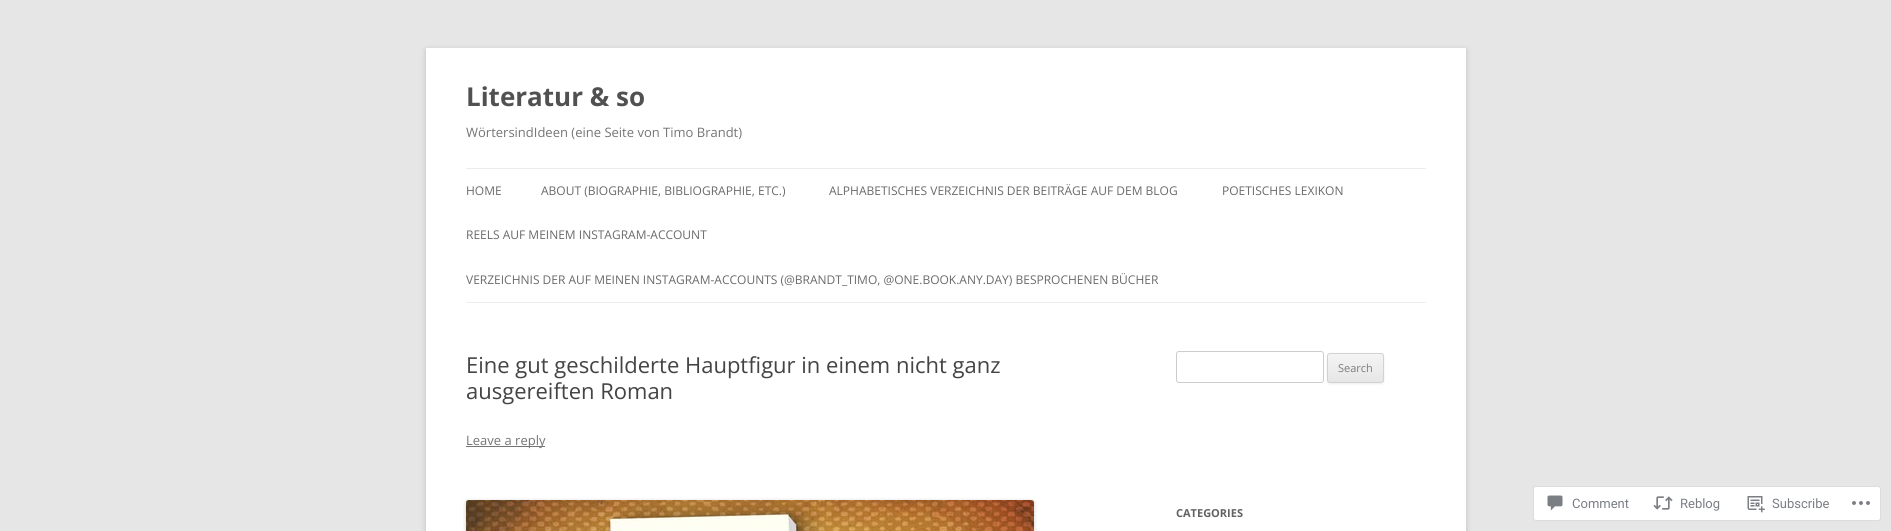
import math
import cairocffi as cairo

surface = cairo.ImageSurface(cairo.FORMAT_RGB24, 1891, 531)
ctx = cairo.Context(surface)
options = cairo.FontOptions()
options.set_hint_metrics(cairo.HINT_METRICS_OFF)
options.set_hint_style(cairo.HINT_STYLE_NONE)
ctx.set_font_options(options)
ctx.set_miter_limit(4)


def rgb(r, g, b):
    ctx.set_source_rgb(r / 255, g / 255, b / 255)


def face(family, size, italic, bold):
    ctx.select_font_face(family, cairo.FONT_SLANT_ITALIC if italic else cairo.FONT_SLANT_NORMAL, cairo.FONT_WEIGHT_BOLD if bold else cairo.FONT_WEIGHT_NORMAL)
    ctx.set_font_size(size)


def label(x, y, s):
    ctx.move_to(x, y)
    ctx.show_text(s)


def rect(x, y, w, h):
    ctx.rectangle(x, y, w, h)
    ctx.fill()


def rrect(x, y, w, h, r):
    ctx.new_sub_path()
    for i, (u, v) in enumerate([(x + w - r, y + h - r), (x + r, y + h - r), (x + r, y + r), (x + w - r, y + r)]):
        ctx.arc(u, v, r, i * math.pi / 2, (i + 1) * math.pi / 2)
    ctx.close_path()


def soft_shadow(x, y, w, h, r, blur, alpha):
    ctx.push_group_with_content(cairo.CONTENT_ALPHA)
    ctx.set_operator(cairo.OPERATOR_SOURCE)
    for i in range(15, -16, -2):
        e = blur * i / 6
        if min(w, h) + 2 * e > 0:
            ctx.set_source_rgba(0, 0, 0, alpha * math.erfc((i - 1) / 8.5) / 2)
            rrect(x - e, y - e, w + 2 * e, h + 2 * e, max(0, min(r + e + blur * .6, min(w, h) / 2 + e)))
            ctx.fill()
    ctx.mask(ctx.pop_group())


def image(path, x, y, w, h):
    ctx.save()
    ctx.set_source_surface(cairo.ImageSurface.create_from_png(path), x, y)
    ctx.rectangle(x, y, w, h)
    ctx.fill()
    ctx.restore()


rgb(230, 230, 230)
ctx.paint()
rgb(100, 100, 100)
soft_shadow(426, 50, 1040, 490, 0, 3, 0.3)
rgb(255, 255, 255)
rect(426, 48, 1040, 483)
face('Open Sans', 26, 0, 1)
rgb(81, 81, 81)
label(466, 106, 'Literatur & so')
face('Open Sans', 13, 0, 0)
rgb(117, 117, 117)
label(466, 137, 'WörtersindIdeen (eine Seite von Timo Brandt)')
rgb(237, 237, 237)
rect(466, 168, 960, 1)
rect(466, 302, 960, 1)
face('Open Sans', 12, 0, 0)
rgb(106, 106, 106)
label(466, 195, 'HOME')
label(541, 195, 'ABOUT (BIOGRAPHIE, BIBLIOGRAPHIE, ETC.)')
label(829, 195, 'ALPHABETISCHES VERZEICHNIS DER BEITRÄGE AUF DEM BLOG')
label(1222, 195, 'POETISCHES LEXIKON')
label(466, 239, 'REELS AUF MEINEM INSTAGRAM-ACCOUNT')
label(466, 284, 'VERZEICHNIS DER AUF MEINEN INSTAGRAM-ACCOUNTS (@BRANDT_TIMO, @ONE.BOOK.ANY.DAY) BESPROCHENEN BÜCHER')
face('Open Sans', 22, 0, 0)
rgb(68, 68, 68)
label(466, 373, 'Eine gut geschilderte Hauptfigur in einem nicht ganz')
label(466, 399, 'ausgereiften Roman')
rgb(117, 117, 117)
rect(466, 446, 79, 1)
face('Open Sans', 13, 0, 0)
label(466, 445, 'Leave a reply')
rgb(0, 0, 0)
soft_shadow(466, 501, 568, 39, 3, 2, 0.2)
image('image0.png', 466, 500, 568, 31)
rrect(1176.5, 351.5, 147, 31, 2.5)
rgb(204, 204, 204)
ctx.set_line_width(1)
ctx.stroke()
rgb(64, 64, 64)
soft_shadow(1327, 354, 57, 30, 3, 1, 0.1)
ctx.save()
rrect(1327, 353, 57, 30, 3)
ctx.clip()
gradient = cairo.LinearGradient(1356, 354, 1356, 382)
gradient.add_color_stop_rgba(0, 0.957, 0.957, 0.957, 1)
gradient.add_color_stop_rgba(1, 0.902, 0.902, 0.902, 1)
ctx.set_source(gradient)
rect(1327, 354, 57, 28)
ctx.restore()
rrect(1327.5, 353.5, 56, 29, 2.5)
rgb(210, 210, 210)
ctx.stroke()
face('Open Sans', 11, 0, 0)
rgb(124, 124, 124)
label(1338, 372, 'Search')
face('Open Sans', 11, 0, 1)
rgb(99, 99, 99)
label(1176, 517, 'CATEGORIES')
rgb(255, 255, 255)
rrect(1533.5, 486.5, 347, 34, 2.5)
ctx.fill_preserve()
rgb(220, 220, 222)
ctx.stroke()
image('image1.png', 1547, 495, 16, 16)
face('Roboto', 13, 0, 0)
rgb(122, 126, 132)
label(1572, 508, 'Comment')
image('image2.png', 1653, 496, 20, 14)
label(1680, 508, 'Reblog')
image('image3.png', 1747, 496, 18, 17)
label(1772, 508, 'Subscribe')
image('image4.png', 1852, 501, 18, 4)
surface.write_to_png('render.png')
